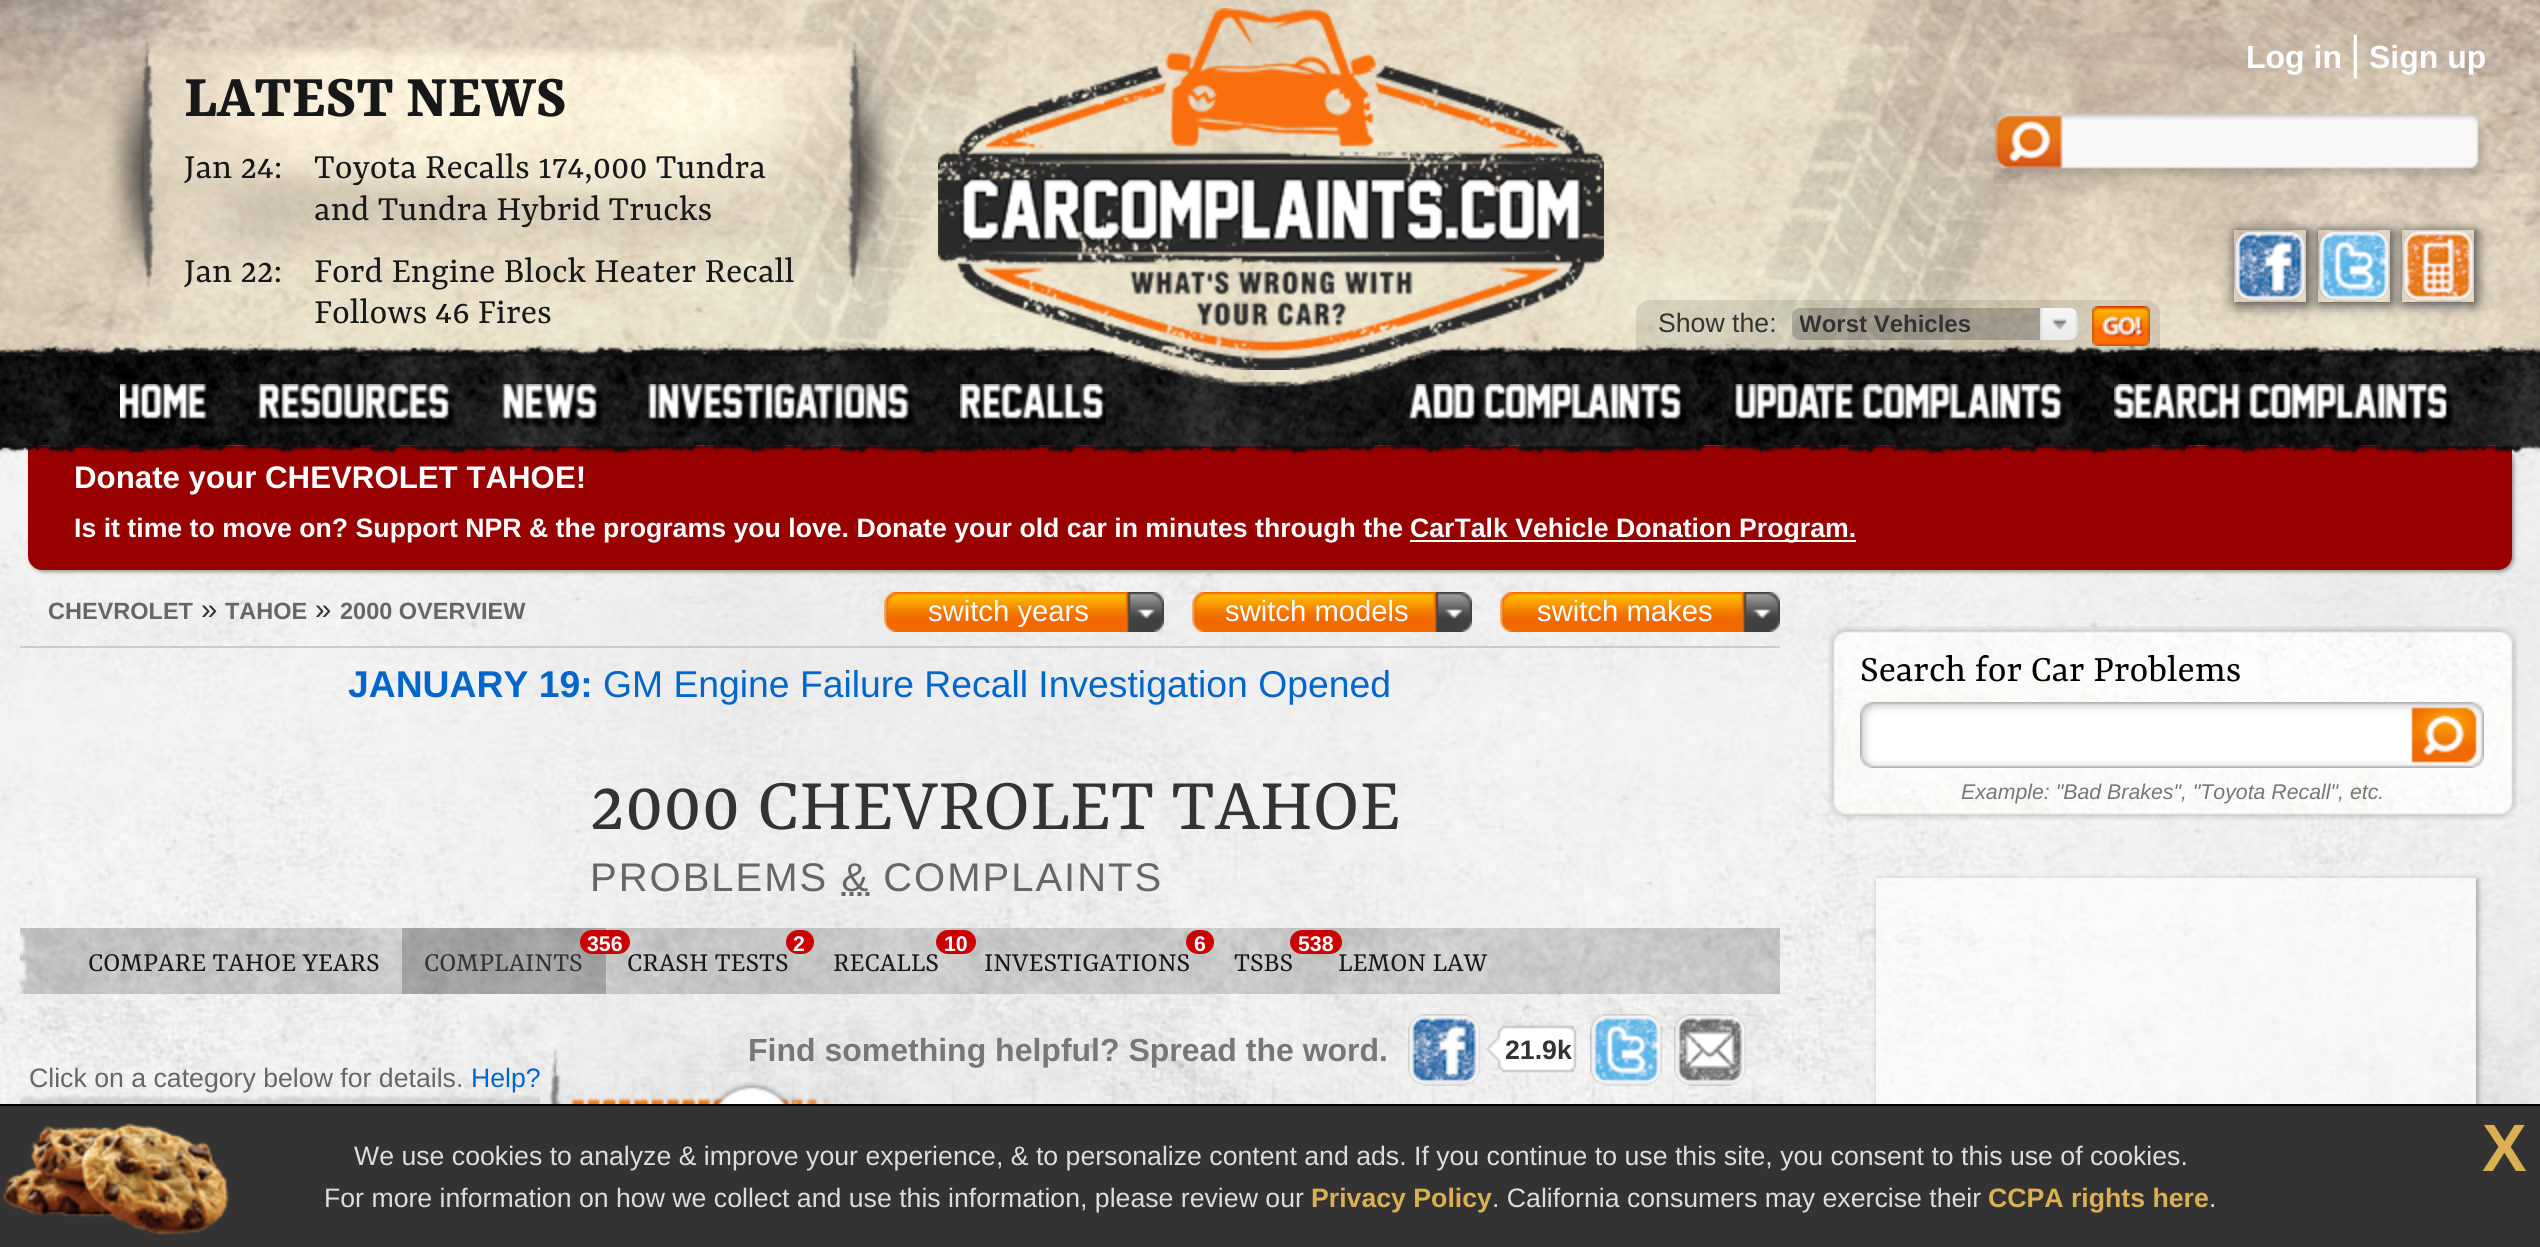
import math
import cairocffi as cairo

surface = cairo.ImageSurface(cairo.FORMAT_RGB24, 2540, 1247)
ctx = cairo.Context(surface)
options = cairo.FontOptions()
options.set_hint_metrics(cairo.HINT_METRICS_OFF)
options.set_hint_style(cairo.HINT_STYLE_NONE)
ctx.set_font_options(options)
ctx.set_miter_limit(4)


def rgb(r, g, b):
    ctx.set_source_rgb(r / 255, g / 255, b / 255)


def face(family, size, italic, bold):
    ctx.select_font_face(family, cairo.FONT_SLANT_ITALIC if italic else cairo.FONT_SLANT_NORMAL, cairo.FONT_WEIGHT_BOLD if bold else cairo.FONT_WEIGHT_NORMAL)
    ctx.set_font_size(size)


def label(x, y, s):
    ctx.move_to(x, y)
    ctx.show_text(s)


def tracked(x, y, s, letter, word):
    ctx.move_to(x, y)
    for ch in s:
        ctx.show_text(ch)
        ctx.rel_move_to(letter + word * (ch == ' '), 0)


def rect(x, y, w, h):
    ctx.rectangle(x, y, w, h)
    ctx.fill()


def rrect(x, y, w, h, r):
    ctx.new_sub_path()
    for i, (u, v) in enumerate([(x + w - r, y + h - r), (x + r, y + h - r), (x + r, y + r), (x + w - r, y + r)]):
        ctx.arc(u, v, r, i * math.pi / 2, (i + 1) * math.pi / 2)
    ctx.close_path()


def soft_shadow(x, y, w, h, r, blur, alpha):
    ctx.push_group_with_content(cairo.CONTENT_ALPHA)
    ctx.set_operator(cairo.OPERATOR_SOURCE)
    for i in range(15, -16, -2):
        e = blur * i / 6
        if min(w, h) + 2 * e > 0:
            ctx.set_source_rgba(0, 0, 0, alpha * math.erfc((i - 1) / 8.5) / 2)
            rrect(x - e, y - e, w + 2 * e, h + 2 * e, max(0, min(r + e + blur * .6, min(w, h) / 2 + e)))
            ctx.fill()
    ctx.mask(ctx.pop_group())


def image(path, x, y, w, h):
    ctx.save()
    ctx.set_source_surface(cairo.ImageSurface.create_from_png(path), x, y)
    ctx.rectangle(x, y, w, h)
    ctx.fill()
    ctx.restore()


rgb(255, 255, 255)
ctx.paint()
image('image0.png', 0, 414, 2540, 690)
image('image1.png', 0, 0, 2540, 414)
rgb(153, 153, 153)
soft_shadow(30, 448, 2484, 124, 14, 2, 1)
rgb(153, 0, 0)
ctx.new_path()
ctx.move_to(28, 446)
ctx.line_to(2512, 446)
ctx.line_to(2512, 556)
ctx.curve_to(2512, 563.5, 2505.5, 570, 2498, 570)
ctx.line_to(42, 570)
ctx.curve_to(34.5, 570, 28, 563.5, 28, 556)
ctx.close_path()
ctx.fill()
image('image2.png', 0, 342, 2540, 116)
image('image3.png', 938, 8, 666, 362)
face('Liberation Sans', 32, 0, 1)
rgb(255, 255, 255)
label(2246, 68, 'Log in')
face('Liberation Serif', 48, 0, 1)
label(2350, 68, '|')
face('Liberation Sans', 32, 0, 1)
label(2369, 68, 'Sign up')
image('image4.png', 1994, 114, 495, 70)
ctx.save()
ctx.set_fill_rule(cairo.FILL_RULE_EVEN_ODD)
ctx.new_path()
ctx.move_to(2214, 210)
ctx.line_to(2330, 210)
ctx.line_to(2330, 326)
ctx.line_to(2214, 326)
ctx.close_path()
ctx.move_to(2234, 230)
ctx.line_to(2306, 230)
ctx.line_to(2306, 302)
ctx.line_to(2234, 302)
ctx.close_path()
ctx.clip()
rgb(51, 51, 51)
soft_shadow(2236, 232, 72, 72, 0, 7, 1)
ctx.restore()
image('image5.png', 2234, 230, 72, 72)
ctx.save()
ctx.set_fill_rule(cairo.FILL_RULE_EVEN_ODD)
ctx.new_path()
ctx.move_to(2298, 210)
ctx.line_to(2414, 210)
ctx.line_to(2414, 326)
ctx.line_to(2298, 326)
ctx.close_path()
ctx.move_to(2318, 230)
ctx.line_to(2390, 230)
ctx.line_to(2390, 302)
ctx.line_to(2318, 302)
ctx.close_path()
ctx.clip()
rgb(51, 51, 51)
soft_shadow(2320, 232, 72, 72, 0, 7, 1)
ctx.restore()
image('image6.png', 2318, 230, 72, 72)
ctx.save()
ctx.set_fill_rule(cairo.FILL_RULE_EVEN_ODD)
ctx.new_path()
ctx.move_to(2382, 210)
ctx.line_to(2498, 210)
ctx.line_to(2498, 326)
ctx.line_to(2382, 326)
ctx.close_path()
ctx.move_to(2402, 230)
ctx.line_to(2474, 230)
ctx.line_to(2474, 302)
ctx.line_to(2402, 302)
ctx.close_path()
ctx.clip()
rgb(51, 51, 51)
soft_shadow(2404, 232, 72, 72, 0, 7, 1)
ctx.restore()
image('image7.png', 2402, 230, 72, 72)
image('image8.png', 106, 14, 790, 275)
face('Yrsa', 64, 0, 1)
rgb(24, 24, 24)
label(184, 116, 'LATEST NEWS')
face('Yrsa', 38, 0, 0)
label(184, 178, 'Jan 24:')
label(314, 178, 'Toyota Recalls 174,000 Tundra')
label(314, 220, 'and Tundra Hybrid Trucks')
label(184, 282, 'Jan 22:')
label(314, 282, 'Ford Engine Block Heater Recall')
label(314, 323, 'Follows 46 Fires')
ctx.set_source_rgba(0, 0, 0, 0.1)
ctx.new_path()
ctx.move_to(1650, 300)
ctx.line_to(2146, 300)
ctx.curve_to(2153.5, 300, 2160, 306.5, 2160, 314)
ctx.line_to(2160, 354)
ctx.line_to(1636, 354)
ctx.line_to(1636, 314)
ctx.curve_to(1636, 306.5, 1642.5, 300, 1650, 300)
ctx.close_path()
ctx.fill()
face('Liberation Sans', 26.67, 0, 0)
rgb(51, 51, 51)
label(1658, 332, 'Show the:')
ctx.set_source_rgba(0, 0, 0, 0.2)
rrect(1792, 308, 286, 32, 8)
ctx.fill()
image('image9.png', 2040, 308, 38, 32)
ctx.save()
ctx.rectangle(1800, 310, 240, 28)
ctx.clip()
face('Liberation Sans', 24, 0, 1)
rgb(51, 51, 51)
label(1799, 332, 'Worst Vehicles')
ctx.restore()
image('image10.png', 2092, 306, 58, 40)
image('image11.png', 120, 384, 92, 44)
image('image12.png', 258, 384, 198, 44)
image('image13.png', 502, 384, 102, 44)
image('image14.png', 648, 384, 267, 44)
image('image15.png', 960, 384, 146, 44)
image('image16.png', 1408, 384, 279, 44)
image('image17.png', 1734, 384, 334, 44)
image('image18.png', 2114, 384, 340, 44)
face('Liberation Sans', 31.25, 0, 1)
rgb(255, 255, 255)
label(74, 488, 'Donate your CHEVROLET TAHOE!')
face('Liberation Sans', 26.67, 0, 1)
label(74, 537, 'Is it time to move on? Support NPR & the programs you love. Donate your old car in minutes through the')
rect(1410, 540, 446, 2)
label(1410, 537, 'CarTalk Vehicle Donation Program.')
rgb(204, 204, 204)
rect(20, 646, 1760, 2)
face('Liberation Sans', 23.5, 0, 1)
rgb(102, 102, 102)
label(48, 619, 'CHEVROLET')
face('Liberation Sans', 29.25, 0, 0)
rgb(51, 51, 51)
label(201, 619, '»')
face('Liberation Sans', 23.5, 0, 1)
rgb(102, 102, 102)
label(225, 619, 'TAHOE')
face('Liberation Sans', 29.25, 0, 0)
rgb(51, 51, 51)
label(315, 619, '»')
face('Liberation Sans', 23.5, 0, 1)
rgb(102, 102, 102)
label(340, 619, '2000 OVERVIEW')
image('image19.png', 884, 592, 280, 40)
face('Liberation Sans', 29.25, 0, 0)
rgb(255, 255, 255)
label(928, 621, 'switch years')
image('image20.png', 1192, 592, 280, 40)
label(1225, 621, 'switch models')
image('image21.png', 1500, 592, 280, 40)
label(1537, 621, 'switch makes')
face('Liberation Sans', 37.3, 0, 1)
rgb(0, 102, 204)
label(348, 697, 'JANUARY 19:')
face('Liberation Sans', 37.3, 0, 0)
label(603, 697, 'GM Engine Failure Recall Investigation Opened')
face('Yrsa', 80, 0, 0)
rgb(51, 51, 51)
label(590, 829, '2000 CHEVROLET TAHOE')
face('Liberation Sans', 40, 0, 0)
rgb(102, 102, 102)
tracked(590, 891, 'PROBLEMS & COMPLAINTS', 2, 0)
ctx.new_path()
ctx.move_to(841.5, 894)
ctx.line_to(870, 894)
ctx.set_line_width(4)
ctx.set_dash([4, 4])
ctx.stroke()
image('image22.png', 20, 928, 1760, 66)
face('Yrsa', 29.25, 0, 0)
rgb(24, 24, 24)
label(88, 971, 'COMPARE TAHOE YEARS')
ctx.set_source_rgba(0, 0, 0, 0.2)
rect(402, 928, 204, 66)
rgb(204, 0, 0)
rrect(580, 930, 50, 24, 12)
ctx.fill()
face('Liberation Sans', 21.3, 0, 1)
rgb(255, 255, 255)
label(587, 951, '356')
face('Yrsa', 29.25, 0, 0)
rgb(51, 51, 51)
label(424, 971, 'COMPLAINTS')
rgb(204, 0, 0)
rrect(786, 930, 28, 24, 12)
ctx.fill()
face('Liberation Sans', 21.3, 0, 1)
rgb(255, 255, 255)
label(793, 951, '2')
face('Yrsa', 29.25, 0, 0)
rgb(24, 24, 24)
label(627, 971, 'CRASH TESTS')
rgb(204, 0, 0)
rrect(936, 930, 40, 24, 12)
ctx.fill()
face('Liberation Sans', 21.3, 0, 1)
rgb(255, 255, 255)
label(944, 951, '10')
face('Yrsa', 29.25, 0, 0)
rgb(24, 24, 24)
label(833, 971, 'RECALLS')
rgb(204, 0, 0)
rrect(1186, 930, 28, 24, 12)
ctx.fill()
face('Liberation Sans', 21.3, 0, 1)
rgb(255, 255, 255)
label(1194, 951, '6')
face('Yrsa', 29.25, 0, 0)
rgb(24, 24, 24)
label(984, 971, 'INVESTIGATIONS')
rgb(204, 0, 0)
rrect(1290, 930, 52, 24, 12)
ctx.fill()
face('Liberation Sans', 21.3, 0, 1)
rgb(255, 255, 255)
label(1298, 951, '538')
face('Yrsa', 29.25, 0, 0)
rgb(24, 24, 24)
label(1234, 971, 'TSBS')
label(1338, 971, 'LEMON LAW')
image('image26.png', 550, 1049, 1206, 55)
face('Liberation Sans', 32, 0, 1)
rgb(119, 119, 119)
label(748, 1061, 'Find something helpful? Spread the word.')
image('image23.png', 1408, 1014, 169, 72)
face('Liberation Sans', 26.67, 0, 1)
rgb(51, 51, 51)
label(1505, 1059, '21.9k')
image('image24.png', 1590, 1014, 72, 72)
image('image25.png', 1674, 1014, 72, 72)
face('Liberation Sans', 26.67, 0, 0)
rgb(102, 102, 102)
label(29, 1087, 'Click on a category below for details.')
rgb(0, 102, 204)
label(471, 1087, 'Help?')
image('image27.png', 20, 1095, 520, 9)
image('image28.png', 570, 1097, 261, 7)
image('image29.png', 712, 1082, 80, 22)
image('image30.png', 1828, 626, 690, 194)
face('Yrsa', 40, 0, 0)
rgb(0, 0, 0)
label(1860, 681, 'Search for Car Problems')
image('image31.png', 1860, 702, 624, 66)
face('Liberation Sans', 21.3, 1, 0)
rgb(119, 119, 119)
label(1961, 799, 'Example: "Bad Brakes", "Toyota Recall", etc.')
ctx.save()
ctx.set_fill_rule(cairo.FILL_RULE_EVEN_ODD)
ctx.new_path()
ctx.move_to(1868, 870)
ctx.line_to(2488, 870)
ctx.line_to(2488, 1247)
ctx.line_to(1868, 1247)
ctx.close_path()
ctx.move_to(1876, 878)
ctx.line_to(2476, 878)
ctx.line_to(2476, 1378)
ctx.line_to(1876, 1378)
ctx.close_path()
ctx.clip()
rgb(153, 153, 153)
soft_shadow(1878, 880, 600, 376, 0, 3, 1)
ctx.restore()
ctx.set_source_rgba(1, 1, 1, 0.6)
rect(1876, 878, 600, 226)
rgb(51, 51, 51)
rect(0, 1106, 2540, 141)
image('image32.png', 3, 1123, 226, 112)
rgb(0, 0, 0)
rect(0, 1104, 2540, 2)
face('Liberation Sans', 26.67, 0, 0)
rgb(221, 221, 221)
label(354, 1165, 'We use cookies to analyze & improve your experience, & to personalize content and ads. If you continue to use this site, you consent to this use of cookies.')
face('Liberation Sans', 67, 0, 1)
rgb(219, 176, 82)
label(2482, 1171, 'X')
face('Liberation Sans', 26.67, 0, 0)
rgb(221, 221, 221)
label(324, 1207, 'For more information on how we collect and use this information, please review our')
face('Liberation Sans', 26.67, 0, 1)
rgb(219, 176, 82)
label(1311, 1207, 'Privacy Policy')
face('Liberation Sans', 26.67, 0, 0)
rgb(221, 221, 221)
label(1492, 1207, '. California consumers may exercise their')
face('Liberation Sans', 26.67, 0, 1)
rgb(219, 176, 82)
label(1988, 1207, 'CCPA rights here')
face('Liberation Sans', 26.67, 0, 0)
rgb(221, 221, 221)
label(2209, 1207, '.')
surface.write_to_png('render.png')
